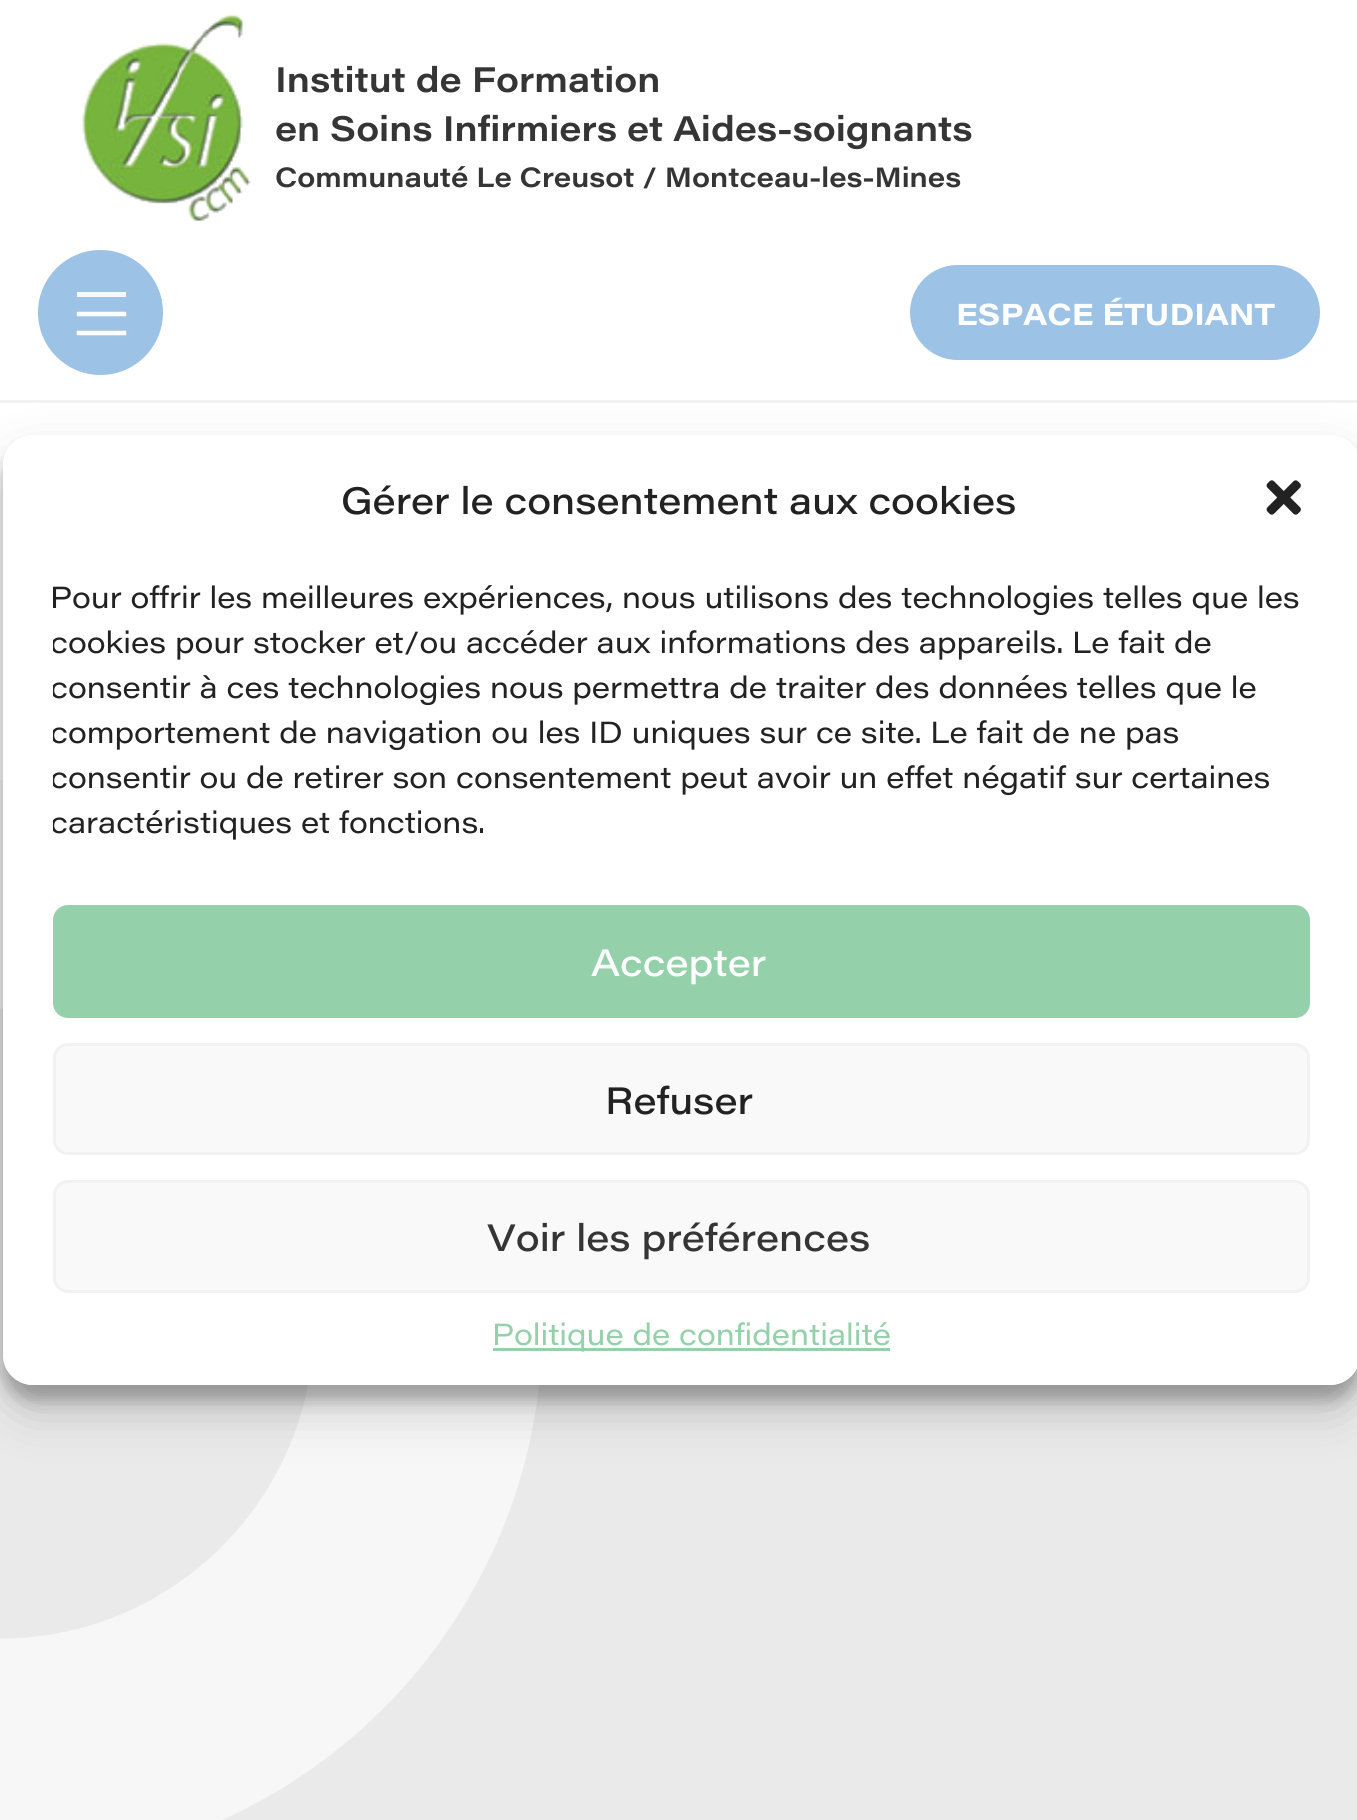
import math
import cairocffi as cairo

surface = cairo.ImageSurface(cairo.FORMAT_RGB24, 1357, 1820)
ctx = cairo.Context(surface)
options = cairo.FontOptions()
options.set_hint_metrics(cairo.HINT_METRICS_OFF)
options.set_hint_style(cairo.HINT_STYLE_NONE)
ctx.set_font_options(options)
ctx.set_miter_limit(4)


def rgb(r, g, b):
    ctx.set_source_rgb(r / 255, g / 255, b / 255)


def face(family, size, italic, bold):
    ctx.select_font_face(family, cairo.FONT_SLANT_ITALIC if italic else cairo.FONT_SLANT_NORMAL, cairo.FONT_WEIGHT_BOLD if bold else cairo.FONT_WEIGHT_NORMAL)
    ctx.set_font_size(size)


def label(x, y, s):
    ctx.move_to(x, y)
    ctx.show_text(s)


def rect(x, y, w, h):
    ctx.rectangle(x, y, w, h)
    ctx.fill()


def rrect(x, y, w, h, r):
    ctx.new_sub_path()
    for i, (u, v) in enumerate([(x + w - r, y + h - r), (x + r, y + h - r), (x + r, y + r), (x + w - r, y + r)]):
        ctx.arc(u, v, r, i * math.pi / 2, (i + 1) * math.pi / 2)
    ctx.close_path()


def soft_shadow(x, y, w, h, r, blur, alpha):
    ctx.push_group_with_content(cairo.CONTENT_ALPHA)
    ctx.set_operator(cairo.OPERATOR_SOURCE)
    for i in range(15, -16, -2):
        e = blur * i / 6
        if min(w, h) + 2 * e > 0:
            ctx.set_source_rgba(0, 0, 0, alpha * math.erfc((i - 1) / 8.5) / 2)
            rrect(x - e, y - e, w + 2 * e, h + 2 * e, max(0, min(r + e + blur * .6, min(w, h) / 2 + e)))
            ctx.fill()
    ctx.mask(ctx.pop_group())


def image(path, x, y, w, h):
    ctx.save()
    ctx.set_source_surface(cairo.ImageSurface.create_from_png(path), x, y)
    ctx.rectangle(x, y, w, h)
    ctx.fill()
    ctx.restore()


rgb(234, 234, 234)
ctx.paint()
rgb(242, 242, 242)
rect(0, 400, 1357, 3)
rgb(255, 255, 255)
rect(0, 0, 1357, 400)
image('image0.png', 82, 15, 169, 206)
face('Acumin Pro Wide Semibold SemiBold', 35, 0, 0)
rgb(53, 53, 53)
label(275, 92, 'Institut de Formation')
label(275, 141, 'en Soins Infirmiers et Aides-soignants')
face('Acumin Pro Wide Semibold SemiBold', 27.5, 0, 0)
label(275, 187, 'Communauté Le Creusot / Montceau-les-Mines')
rgb(156, 194, 230)
ctx.new_path()
ctx.arc(100.5, 312.5, 62.5, 0, 2 * math.pi)
ctx.fill()
rgb(245, 249, 253)
rect(77, 292, 49, 5)
ctx.new_path()
ctx.move_to(79, 314)
ctx.line_to(124, 314)
ctx.move_to(79, 333)
ctx.line_to(124, 333)
rgb(255, 255, 255)
ctx.set_line_width(4.5)
ctx.set_line_cap(cairo.LINE_CAP_SQUARE)
ctx.stroke()
rgb(156, 194, 230)
rrect(910, 265, 410, 95, 47.5)
ctx.fill()
face('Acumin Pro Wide', 30, 0, 1)
rgb(255, 255, 255)
label(956, 325, 'ESPACE ÉTUDIANT')
rect(0, 403, 1357, 377)
image('image1.png', 0, 780, 540, 1040)
ctx.save()
ctx.set_fill_rule(cairo.FILL_RULE_EVEN_ODD)
ctx.new_path()
ctx.move_to(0, 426)
ctx.line_to(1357, 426)
ctx.line_to(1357, 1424)
ctx.line_to(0, 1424)
ctx.close_path()
ctx.move_to(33, 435)
ctx.line_to(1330, 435)
ctx.curve_to(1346.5, 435, 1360, 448.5, 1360, 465)
ctx.line_to(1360, 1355)
ctx.curve_to(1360, 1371.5, 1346.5, 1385, 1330, 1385)
ctx.line_to(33, 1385)
ctx.curve_to(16.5, 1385, 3, 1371.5, 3, 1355)
ctx.line_to(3, 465)
ctx.curve_to(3, 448.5, 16.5, 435, 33, 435)
ctx.close_path()
ctx.clip()
rgb(0, 0, 0)
soft_shadow(3, 450, 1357, 950, 30, 7.5, 0.23)
ctx.restore()
ctx.save()
ctx.set_fill_rule(cairo.FILL_RULE_EVEN_ODD)
ctx.new_path()
ctx.move_to(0, 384)
ctx.line_to(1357, 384)
ctx.line_to(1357, 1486)
ctx.line_to(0, 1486)
ctx.close_path()
ctx.move_to(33, 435)
ctx.line_to(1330, 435)
ctx.curve_to(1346.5, 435, 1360, 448.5, 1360, 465)
ctx.line_to(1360, 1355)
ctx.curve_to(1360, 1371.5, 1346.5, 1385, 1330, 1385)
ctx.line_to(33, 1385)
ctx.curve_to(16.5, 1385, 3, 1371.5, 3, 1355)
ctx.line_to(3, 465)
ctx.curve_to(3, 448.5, 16.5, 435, 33, 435)
ctx.close_path()
ctx.clip()
rgb(0, 0, 0)
soft_shadow(3, 460, 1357, 950, 30, 25, 0.19)
ctx.restore()
rrect(3, 435, 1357, 950, 30)
ctx.fill()
face('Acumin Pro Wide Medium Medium', 37.5, 0, 0)
rgb(34, 34, 34)
label(341, 514, 'Gérer le consentement aux cookies')
image('image2.png', 1266, 480, 35, 35)
face('Acumin Pro Wide', 30, 0, 0)
label(50, 608, 'Pour offrir les meilleures expériences, nous utilisons des technologies telles que les')
ctx.save()
ctx.rectangle(53, 573, 1257, 282)
ctx.clip()
label(50, 653, 'cookies pour stocker et/ou accéder aux informations des appareils. Le fait de')
label(50, 698, 'consentir à ces technologies nous permettra de traiter des données telles que le')
label(50, 743, 'comportement de navigation ou les ID uniques sur ce site. Le fait de ne pas')
label(50, 788, 'consentir ou de retirer son consentement peut avoir un effet négatif sur certaines')
label(50, 833, 'caractéristiques et fonctions.')
ctx.restore()
rgb(148, 209, 170)
rrect(54.5, 906.5, 1254, 110, 13.5)
ctx.fill_preserve()
ctx.set_line_width(3)
ctx.set_line_cap(cairo.LINE_CAP_BUTT)
ctx.stroke()
face('Acumin Pro Wide Medium Medium', 37.5, 0, 0)
rgb(255, 255, 255)
label(591, 976, 'Accepter')
rgb(249, 249, 249)
rrect(54.5, 1044.5, 1254, 109, 13.5)
ctx.fill_preserve()
rgb(242, 242, 242)
ctx.stroke()
rgb(34, 34, 34)
label(605, 1114, 'Refuser')
rgb(249, 249, 249)
rrect(54.5, 1181.5, 1254, 110, 13.5)
ctx.fill_preserve()
rgb(242, 242, 242)
ctx.stroke()
rgb(53, 53, 53)
label(487, 1251, 'Voir les préférences')
rgb(148, 209, 170)
rect(493, 1348, 397, 3)
face('Acumin Pro Wide', 30, 0, 0)
label(492, 1345, 'Politique de confidentialité')
surface.write_to_png('render.png')
